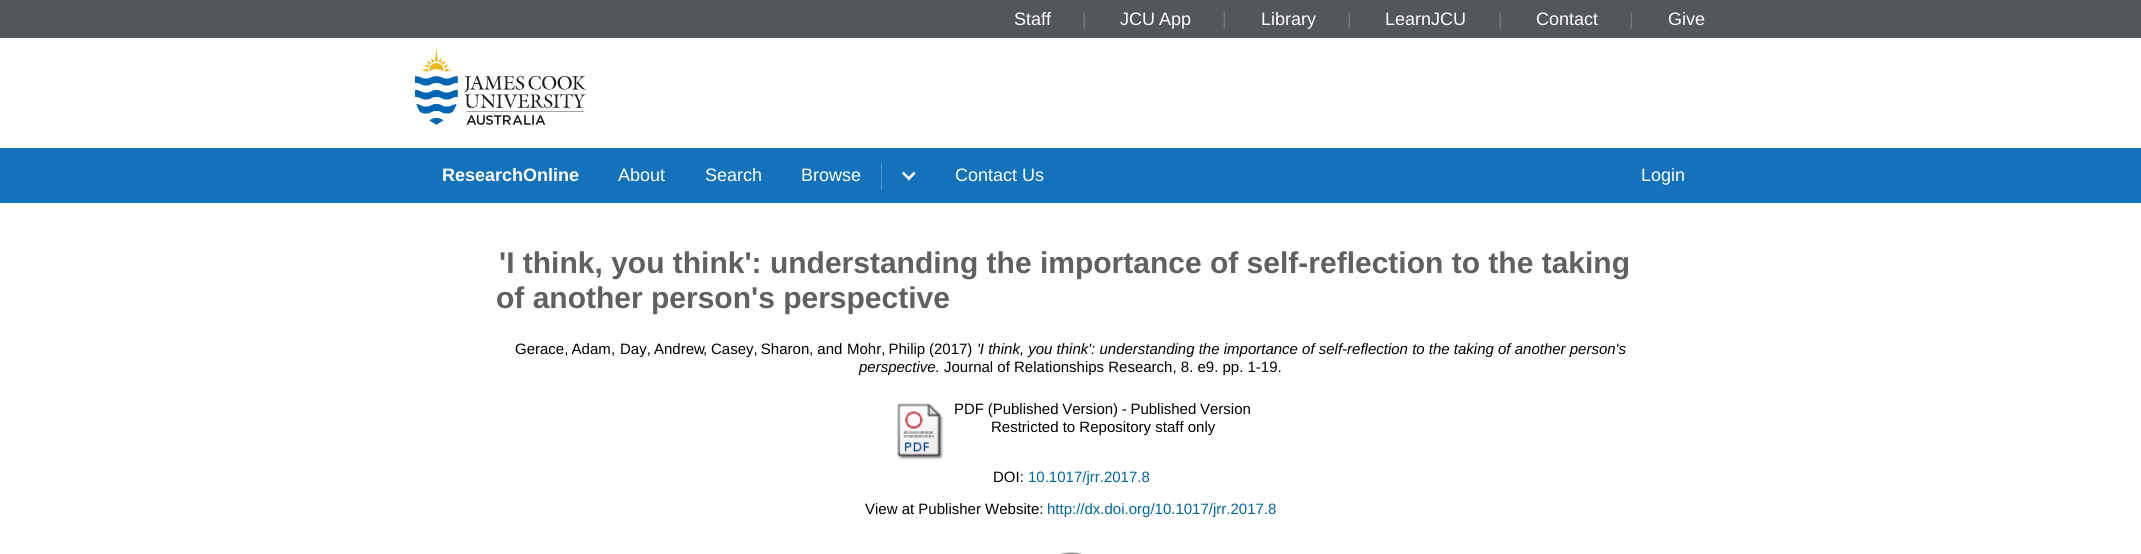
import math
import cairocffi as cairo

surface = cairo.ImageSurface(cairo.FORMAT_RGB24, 2141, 554)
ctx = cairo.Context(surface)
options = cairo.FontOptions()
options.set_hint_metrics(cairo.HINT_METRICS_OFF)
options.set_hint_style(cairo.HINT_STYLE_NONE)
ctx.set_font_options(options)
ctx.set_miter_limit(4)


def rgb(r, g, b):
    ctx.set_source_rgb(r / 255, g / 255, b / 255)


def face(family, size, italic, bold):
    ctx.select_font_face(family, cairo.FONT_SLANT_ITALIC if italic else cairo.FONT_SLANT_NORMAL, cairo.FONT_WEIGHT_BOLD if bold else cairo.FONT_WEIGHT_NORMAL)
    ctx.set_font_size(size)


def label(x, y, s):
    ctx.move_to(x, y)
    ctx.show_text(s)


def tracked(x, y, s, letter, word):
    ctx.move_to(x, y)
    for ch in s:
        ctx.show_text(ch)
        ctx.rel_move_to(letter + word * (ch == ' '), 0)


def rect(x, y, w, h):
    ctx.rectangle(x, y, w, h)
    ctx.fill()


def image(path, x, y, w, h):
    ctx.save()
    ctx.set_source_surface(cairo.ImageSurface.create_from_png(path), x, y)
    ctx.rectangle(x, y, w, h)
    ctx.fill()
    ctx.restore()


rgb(255, 255, 255)
ctx.paint()
rgb(83, 86, 90)
rect(0, 0, 2141, 38)
face('Liberation Sans', 18, 0, 0)
rgb(255, 255, 255)
label(1014, 25, 'Staff')
rgb(117, 120, 123)
label(1082, 25, '|')
rgb(255, 255, 255)
tracked(1120, 25, 'JCU App', 0, -1)
rgb(117, 120, 123)
label(1222, 25, '|')
rgb(255, 255, 255)
label(1261, 25, 'Library')
rgb(117, 120, 123)
label(1347, 25, '|')
rgb(255, 255, 255)
label(1385, 25, 'LearnJCU')
rgb(117, 120, 123)
label(1498, 25, '|')
rgb(255, 255, 255)
label(1536, 25, 'Contact')
rgb(117, 120, 123)
label(1629, 25, '|')
rgb(255, 255, 255)
label(1668, 25, 'Give')
image('image0.png', 415, 48, 171, 77)
rgb(19, 114, 185)
rect(0, 148, 2141, 55)
face('Liberation Sans', 18, 0, 1)
rgb(255, 255, 255)
label(442, 181, 'ResearchOnline')
face('Liberation Sans', 18, 0, 0)
label(618, 181, 'About')
label(705, 181, 'Search')
label(801, 181, 'Browse')
rgb(78, 149, 203)
rect(881, 163, 1, 27)
rgb(255, 255, 255)
ctx.new_path()
ctx.move_to(915.5, 173.5)
ctx.line_to(909, 180.5)
ctx.line_to(907, 178.5)
ctx.line_to(914, 171.5)
ctx.close_path()
ctx.fill()
ctx.new_path()
ctx.move_to(910.5, 178.5)
ctx.line_to(909, 180.5)
ctx.line_to(902, 173.5)
ctx.line_to(903.5, 171.5)
ctx.close_path()
ctx.fill()
label(955, 181, 'Contact Us')
label(1641, 181, 'Login')
face('Liberation Sans', 30, 0, 1)
rgb(96, 96, 96)
label(499, 273, '\'I think, you think\': understanding the importance of self-reflection to the taking')
label(496, 308, 'of another person\'s perspective')
face('Liberation Sans', 15, 0, 0)
rgb(0, 0, 0)
tracked(515, 354, 'Gerace, Adam', 0, -1)
label(611, 354, ',')
tracked(620, 354, 'Day, Andrew', 0, -1)
tracked(711, 354, 'Casey, Sharon', 0, -1)
label(809, 354, ', and')
tracked(847, 354, 'Mohr, Philip', 0, -1)
label(929, 354, '(2017)')
face('Liberation Sans', 15, 1, 0)
label(977, 354, '\'I think, you think\': understanding the importance of self-reflection to the taking of another person\'s')
face('Liberation Sans', 15, 0, 0)
label(703, 354, ',')
face('Liberation Sans', 15, 1, 0)
label(859, 372, 'perspective.')
face('Liberation Sans', 15, 0, 0)
label(944, 372, 'Journal of Relationships Research, 8. e9. pp. 1-19.')
image('image1.png', 897, 403, 47, 57)
tracked(954, 414, 'PDF (Published Version) - Published Version', 0, -0.5)
label(991, 432, 'Restricted to Repository staff only')
label(993, 482, 'DOI:')
rgb(0, 102, 153)
label(1028, 482, '10.1017/jrr.2017.8')
rgb(0, 0, 0)
label(865, 514, 'View at Publisher Website:')
rgb(0, 102, 153)
label(1047, 514, 'http://dx.doi.org/10.1017/jrr.2017.8')
image('image2.png', 1060, 552, 23, 2)
surface.write_to_png('render.png')
